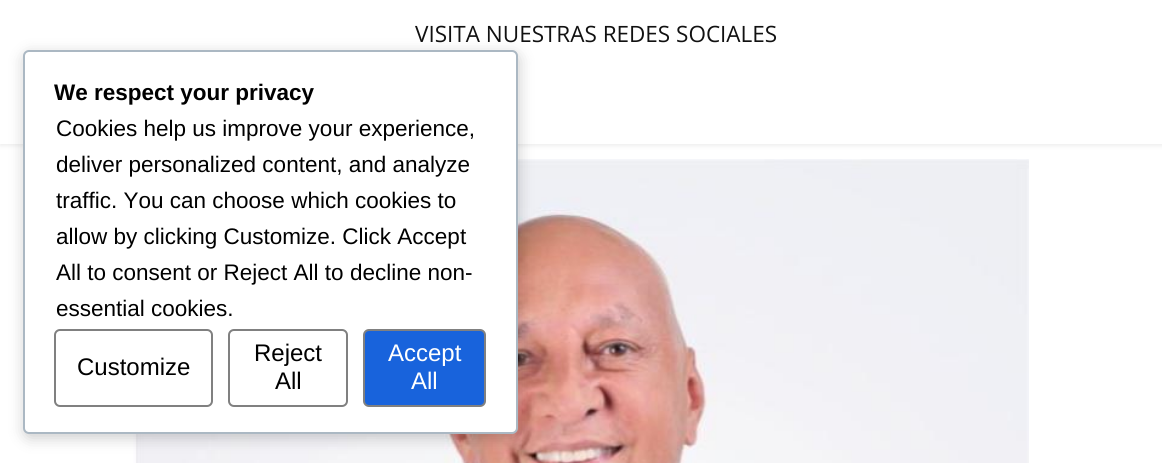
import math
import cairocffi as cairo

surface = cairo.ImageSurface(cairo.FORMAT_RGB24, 1162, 463)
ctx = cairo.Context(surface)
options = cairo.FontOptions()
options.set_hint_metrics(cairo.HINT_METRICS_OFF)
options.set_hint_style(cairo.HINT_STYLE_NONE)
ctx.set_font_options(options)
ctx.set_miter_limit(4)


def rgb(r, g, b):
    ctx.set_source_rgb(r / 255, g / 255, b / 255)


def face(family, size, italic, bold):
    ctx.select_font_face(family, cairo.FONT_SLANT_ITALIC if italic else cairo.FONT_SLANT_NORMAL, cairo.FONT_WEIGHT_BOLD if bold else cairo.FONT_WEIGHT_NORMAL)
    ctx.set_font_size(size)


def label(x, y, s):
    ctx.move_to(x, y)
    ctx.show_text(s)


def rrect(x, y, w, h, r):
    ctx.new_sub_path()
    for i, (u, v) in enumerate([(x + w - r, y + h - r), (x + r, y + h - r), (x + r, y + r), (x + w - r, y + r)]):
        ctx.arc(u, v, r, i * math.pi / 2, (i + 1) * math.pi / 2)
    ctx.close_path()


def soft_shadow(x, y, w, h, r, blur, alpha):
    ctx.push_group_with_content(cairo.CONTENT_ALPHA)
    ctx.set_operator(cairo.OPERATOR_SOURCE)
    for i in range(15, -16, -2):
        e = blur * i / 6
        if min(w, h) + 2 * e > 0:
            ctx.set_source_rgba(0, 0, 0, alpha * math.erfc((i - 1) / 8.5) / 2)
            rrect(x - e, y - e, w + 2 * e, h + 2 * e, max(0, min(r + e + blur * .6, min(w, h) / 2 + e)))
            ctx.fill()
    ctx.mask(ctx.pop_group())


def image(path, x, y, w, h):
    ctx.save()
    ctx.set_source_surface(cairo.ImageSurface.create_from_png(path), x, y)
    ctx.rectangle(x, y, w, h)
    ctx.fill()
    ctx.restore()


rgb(255, 255, 255)
ctx.paint()
ctx.save()
ctx.rectangle(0, 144, 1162, 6)
ctx.clip()
rgb(238, 238, 238)
soft_shadow(0, 2, 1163, 144, 0, 2, 1)
ctx.restore()
face('Open Sans', 22.5, 0, 0)
rgb(17, 17, 17)
label(415, 42, 'VISITA NUESTRAS REDES SOCIALES')
image('image0.png', 133, 159, 896, 304)
rgb(0, 0, 0)
soft_shadow(24, 54, 495, 384, 6, 7.5, 0.2)
rgb(255, 255, 255)
rrect(24, 51, 493, 382, 5)
ctx.fill_preserve()
rgb(171, 184, 195)
ctx.stroke()
face('Liberation Sans', 22.5, 0, 1)
rgb(0, 0, 0)
label(54, 100, 'We respect your privacy')
face('Liberation Sans', 22.5, 0, 0)
label(56, 136, 'Cookies help us improve your experience,')
label(56, 172, 'deliver personalized content, and analyze')
label(56, 208, 'traffic. You can choose which cookies to')
label(56, 244, 'allow by clicking Customize. Click Accept')
label(56, 280, 'All to consent or Reject All to decline non-')
label(56, 316, 'essential cookies.')
rrect(55, 330, 157, 76, 5)
rgb(128, 128, 128)
ctx.stroke()
face('Liberation Sans', 24, 0, 0)
rgb(0, 0, 0)
label(77, 375, 'Customize')
rrect(229, 330, 118, 76, 5)
rgb(128, 128, 128)
ctx.stroke()
rgb(0, 0, 0)
label(254, 361, 'Reject')
label(275, 389, 'All')
rgb(24, 99, 220)
rrect(364, 330, 121, 76, 5)
ctx.fill_preserve()
rgb(128, 128, 128)
ctx.stroke()
rgb(255, 255, 255)
label(388, 361, 'Accept')
label(411, 389, 'All')
surface.write_to_png('render.png')
